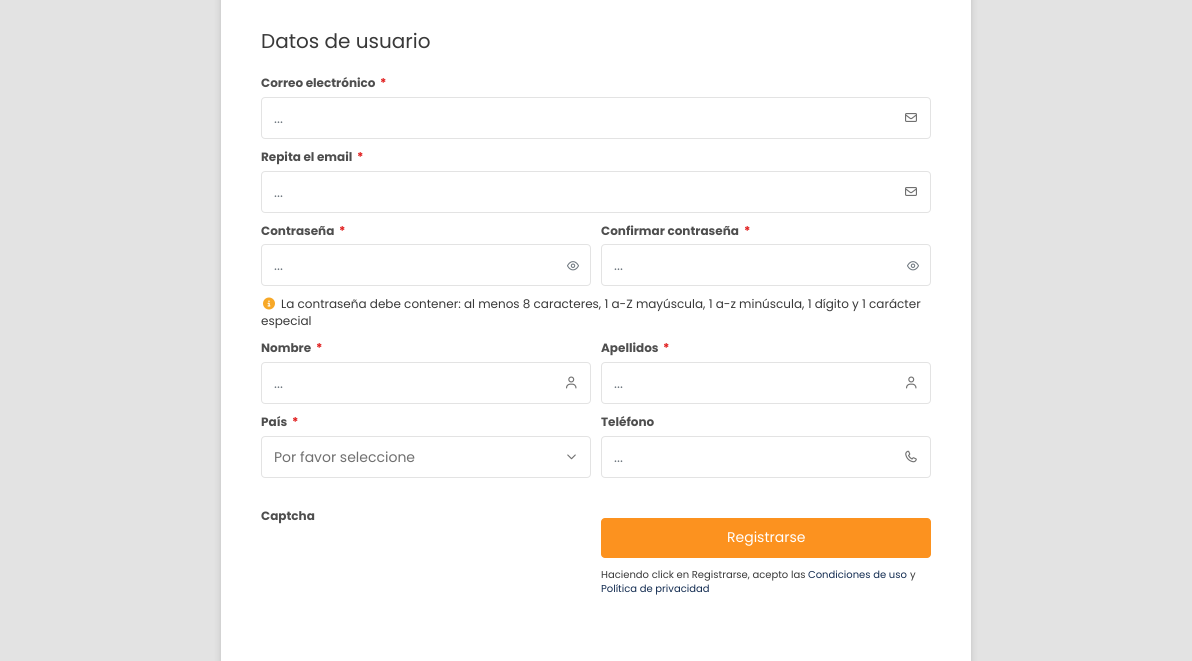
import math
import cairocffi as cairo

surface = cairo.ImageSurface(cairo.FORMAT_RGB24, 1192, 661)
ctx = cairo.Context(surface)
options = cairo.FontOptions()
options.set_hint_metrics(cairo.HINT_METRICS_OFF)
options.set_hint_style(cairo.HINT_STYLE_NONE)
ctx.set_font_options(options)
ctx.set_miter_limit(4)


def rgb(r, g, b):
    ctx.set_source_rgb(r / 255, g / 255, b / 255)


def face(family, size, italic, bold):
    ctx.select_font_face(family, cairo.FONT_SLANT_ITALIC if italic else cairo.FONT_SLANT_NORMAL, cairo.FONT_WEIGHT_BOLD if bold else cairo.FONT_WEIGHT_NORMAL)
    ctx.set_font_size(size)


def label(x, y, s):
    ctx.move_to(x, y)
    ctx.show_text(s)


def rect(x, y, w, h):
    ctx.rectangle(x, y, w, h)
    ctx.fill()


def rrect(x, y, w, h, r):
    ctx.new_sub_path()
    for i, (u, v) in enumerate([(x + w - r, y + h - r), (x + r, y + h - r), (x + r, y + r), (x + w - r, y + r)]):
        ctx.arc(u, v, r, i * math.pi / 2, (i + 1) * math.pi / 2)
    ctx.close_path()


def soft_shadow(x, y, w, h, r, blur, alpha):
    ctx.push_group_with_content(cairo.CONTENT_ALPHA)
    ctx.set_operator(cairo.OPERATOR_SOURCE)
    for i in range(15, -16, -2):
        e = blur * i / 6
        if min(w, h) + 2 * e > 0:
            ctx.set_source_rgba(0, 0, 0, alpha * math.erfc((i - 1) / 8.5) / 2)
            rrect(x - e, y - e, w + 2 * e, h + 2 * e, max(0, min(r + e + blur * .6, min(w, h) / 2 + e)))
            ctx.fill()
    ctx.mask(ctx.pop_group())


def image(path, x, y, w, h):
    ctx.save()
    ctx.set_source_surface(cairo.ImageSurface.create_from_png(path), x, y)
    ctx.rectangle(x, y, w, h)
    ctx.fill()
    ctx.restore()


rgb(227, 227, 227)
ctx.paint()
rgb(0, 0, 0)
soft_shadow(221, -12, 750, 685, 0, 4, 0.15)
rgb(255, 255, 255)
rect(221, 0, 750, 661)
face('Poppins', 20, 0, 0)
rgb(57, 57, 57)
label(261, 48, 'Datos de usuario')
face('Poppins', 12, 0, 1)
rgb(78, 78, 78)
label(261, 87, 'Correo electrónico')
rgb(224, 29, 29)
label(380, 87, '*')
rrect(261.5, 97.5, 669, 41, 3.5)
rgb(227, 227, 227)
ctx.set_line_width(1)
ctx.stroke()
image('image0.png', 905, 113, 12, 9)
face('Poppins', 14, 0, 0)
rgb(108, 117, 125)
label(274, 123, '...')
face('Poppins', 12, 0, 1)
rgb(78, 78, 78)
label(261, 161, 'Repita el email')
rgb(224, 29, 29)
label(357, 161, '*')
rrect(261.5, 171.5, 669, 41, 3.5)
rgb(227, 227, 227)
ctx.stroke()
image('image0.png', 905, 187, 12, 9)
face('Poppins', 14, 0, 0)
rgb(108, 117, 125)
label(274, 197, '...')
face('Poppins', 12, 0, 1)
rgb(78, 78, 78)
label(261, 235, 'Contraseña')
rgb(224, 29, 29)
label(339, 235, '*')
rrect(261.5, 244.5, 329, 41, 3.5)
rgb(227, 227, 227)
ctx.stroke()
face('Poppins', 14, 0, 0)
rgb(108, 117, 125)
label(274, 270, '...')
image('image1.png', 567, 261, 12, 10)
face('Poppins', 12, 0, 1)
rgb(78, 78, 78)
label(601, 235, 'Confirmar contraseña')
rgb(224, 29, 29)
label(744, 235, '*')
rrect(601.5, 244.5, 329, 41, 3.5)
rgb(227, 227, 227)
ctx.stroke()
face('Poppins', 14, 0, 0)
rgb(108, 117, 125)
label(614, 270, '...')
image('image1.png', 907, 261, 12, 10)
image('image2.png', 263, 297, 12, 13)
face('Poppins', 12, 0, 0)
rgb(57, 57, 57)
label(281, 308, 'La contraseña debe contener: al menos 8 caracteres, 1 a-Z mayúscula, 1 a-z minúscula, 1 dígito y 1 carácter')
label(261, 325, 'especial')
face('Poppins', 12, 0, 1)
rgb(78, 78, 78)
label(261, 352, 'Nombre')
rgb(224, 29, 29)
label(316, 352, '*')
rrect(261.5, 362.5, 329, 41, 3.5)
rgb(227, 227, 227)
ctx.stroke()
face('Poppins', 14, 0, 0)
rgb(108, 117, 125)
label(274, 388, '...')
image('image3.png', 566, 376, 11, 13)
face('Poppins', 12, 0, 1)
rgb(78, 78, 78)
label(601, 352, 'Apellidos')
rgb(224, 29, 29)
label(663, 352, '*')
rrect(601.5, 362.5, 329, 41, 3.5)
rgb(227, 227, 227)
ctx.stroke()
face('Poppins', 14, 0, 0)
rgb(108, 117, 125)
label(614, 388, '...')
image('image3.png', 906, 376, 11, 13)
face('Poppins', 12, 0, 1)
rgb(78, 78, 78)
label(261, 426, 'País')
rgb(224, 29, 29)
label(292, 426, '*')
image('image4.png', 567, 454, 9, 6)
rrect(261.5, 436.5, 329, 41, 3.5)
rgb(227, 227, 227)
ctx.stroke()
face('Poppins', 14, 0, 0)
rgb(112, 112, 112)
label(274, 462, 'Por favor seleccione')
face('Poppins', 12, 0, 1)
rgb(78, 78, 78)
label(601, 426, 'Teléfono')
rrect(601.5, 436.5, 329, 41, 3.5)
rgb(227, 227, 227)
ctx.stroke()
face('Poppins', 14, 0, 0)
rgb(108, 117, 125)
label(614, 462, '...')
image('image5.png', 905, 450, 12, 13)
face('Poppins', 12, 0, 1)
rgb(78, 78, 78)
label(261, 520, 'Captcha')
rgb(252, 146, 31)
rrect(601, 518, 330, 40, 4)
ctx.fill()
face('Poppins', 14, 0, 0)
rgb(255, 255, 255)
label(727, 542, 'Registrarse')
face('Poppins', 10, 0, 0)
rgb(57, 57, 57)
label(601, 578, 'Haciendo click en Registrarse, acepto las')
rgb(19, 44, 81)
label(808, 578, 'Condiciones de uso')
rgb(57, 57, 57)
label(910, 578, 'y')
rgb(19, 44, 81)
label(601, 592, 'Política de privacidad')
surface.write_to_png('render.png')
